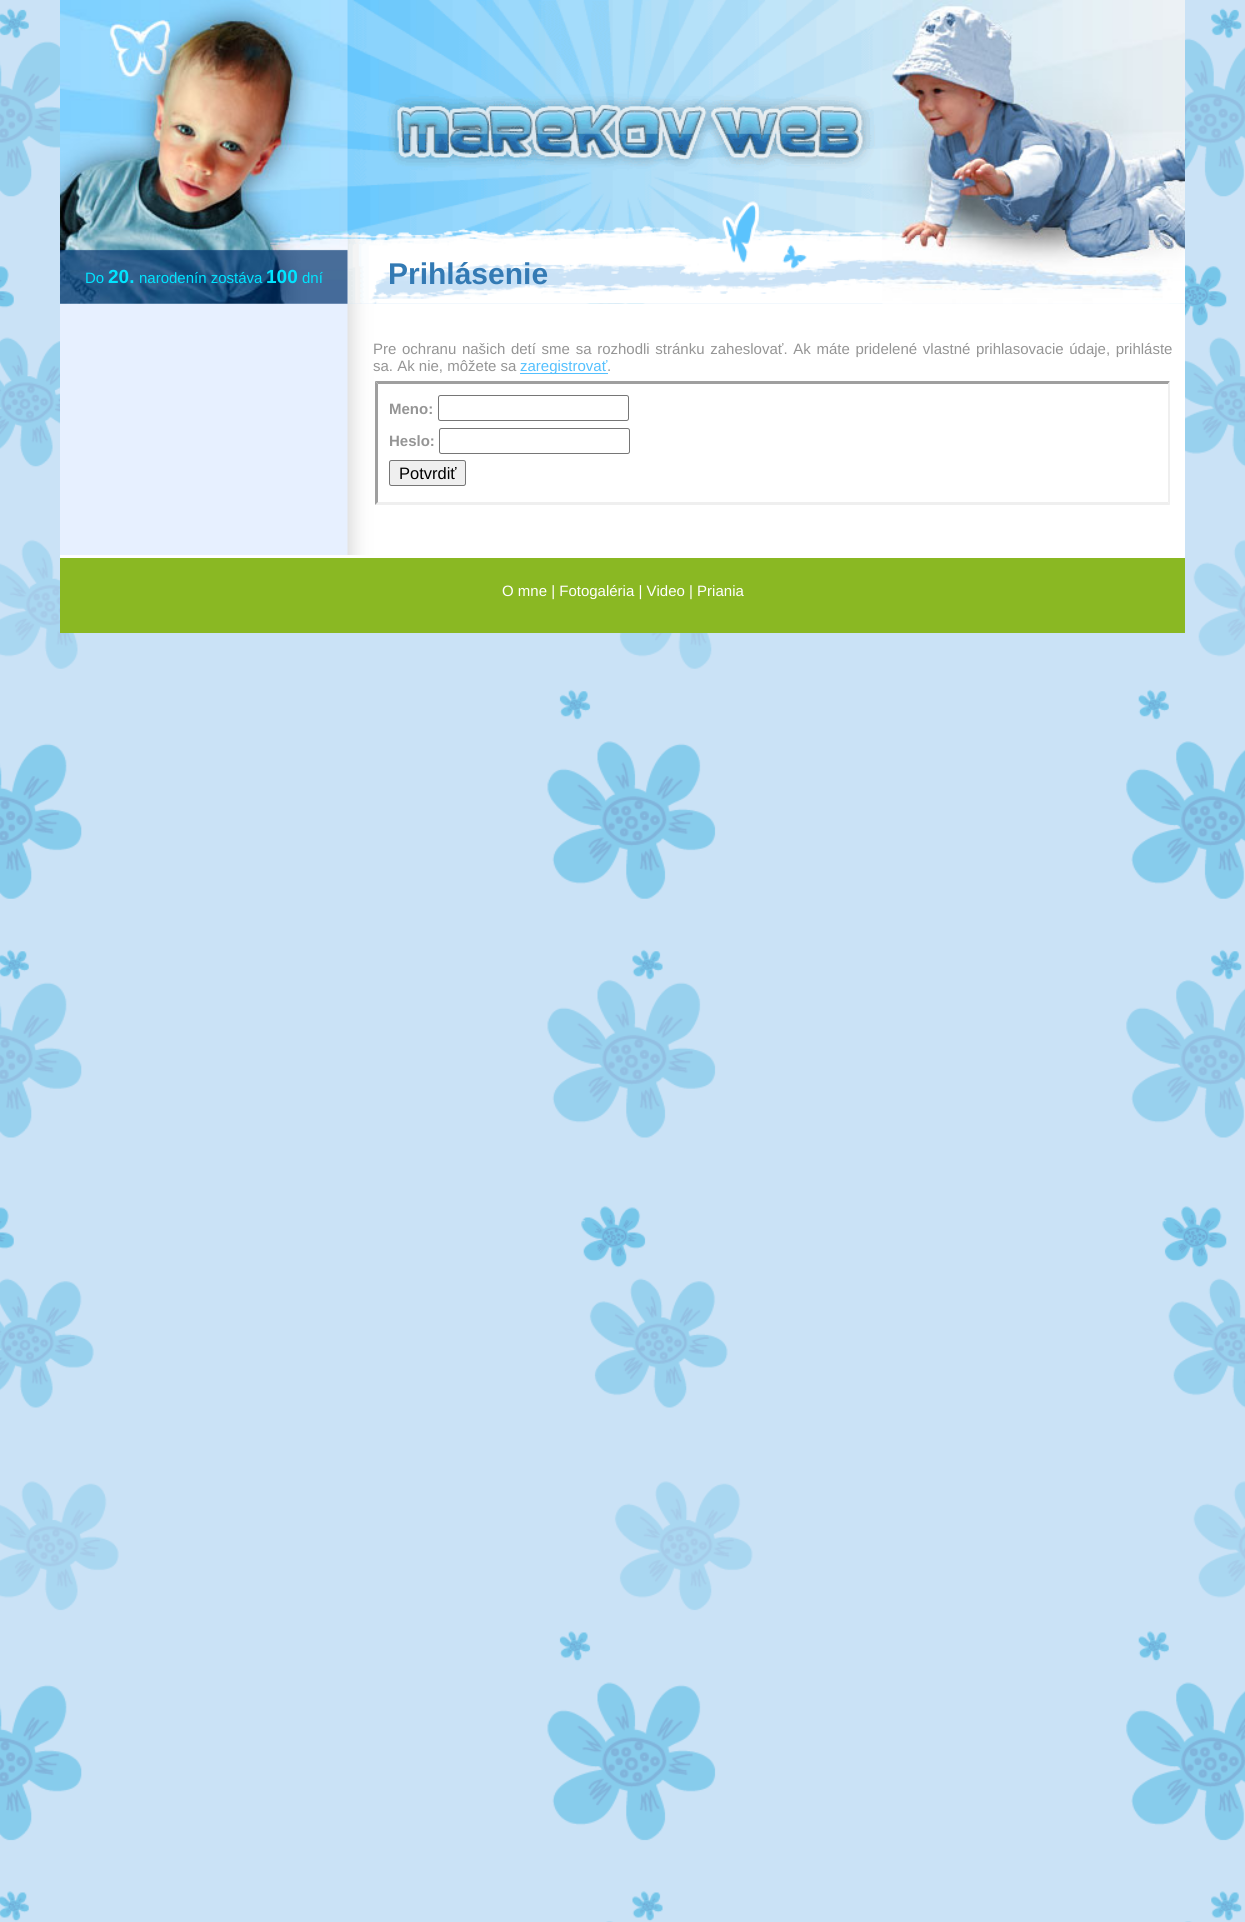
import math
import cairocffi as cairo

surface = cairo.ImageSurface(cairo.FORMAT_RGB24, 1245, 1922)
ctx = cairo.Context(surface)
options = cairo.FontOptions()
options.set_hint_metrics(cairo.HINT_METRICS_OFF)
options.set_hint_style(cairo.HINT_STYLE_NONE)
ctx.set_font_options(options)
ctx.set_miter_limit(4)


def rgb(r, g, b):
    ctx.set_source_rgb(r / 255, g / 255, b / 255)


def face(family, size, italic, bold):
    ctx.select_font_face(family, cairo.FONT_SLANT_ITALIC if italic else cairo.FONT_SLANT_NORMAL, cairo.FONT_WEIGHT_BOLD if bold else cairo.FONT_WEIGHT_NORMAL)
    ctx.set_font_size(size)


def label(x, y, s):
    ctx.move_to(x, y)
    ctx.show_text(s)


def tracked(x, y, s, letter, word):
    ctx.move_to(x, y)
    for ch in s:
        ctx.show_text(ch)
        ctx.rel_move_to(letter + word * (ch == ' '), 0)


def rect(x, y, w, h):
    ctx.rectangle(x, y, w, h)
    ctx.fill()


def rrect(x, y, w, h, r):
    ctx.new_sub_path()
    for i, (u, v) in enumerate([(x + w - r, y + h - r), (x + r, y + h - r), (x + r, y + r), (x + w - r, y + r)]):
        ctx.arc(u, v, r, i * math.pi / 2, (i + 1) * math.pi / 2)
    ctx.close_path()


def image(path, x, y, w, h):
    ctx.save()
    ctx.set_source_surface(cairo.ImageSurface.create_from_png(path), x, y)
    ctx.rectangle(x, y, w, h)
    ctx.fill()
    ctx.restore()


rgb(202, 226, 246)
ctx.paint()
image('image0.png', 0, 8, 1245, 1914)
image('image1.png', 60, 0, 1125, 304)
image('image4.png', 60, 303, 319, 252)
image('image2.png', 60, 0, 288, 304)
face('Liberation Sans', 15, 0, 0)
rgb(0, 228, 255)
label(85, 283, 'Do')
face('Liberation Sans', 19, 0, 1)
label(108, 283, '20.')
face('Liberation Sans', 15, 0, 0)
label(139, 283, 'narodenín zostáva')
face('Liberation Sans', 19, 0, 1)
label(266, 283, '100')
face('Liberation Sans', 15, 0, 0)
label(302, 283, 'dní')
image('image3.png', 882, 0, 303, 304)
rgb(255, 255, 255)
rect(379, 304, 806, 251)
face('Liberation Sans', 30, 0, 1)
rgb(51, 122, 180)
label(388, 284, 'Prihlásenie')
face('Liberation Sans', 15, 0, 0)
rgb(149, 149, 149)
tracked(373, 354, 'Pre ochranu našich detí sme sa rozhodli stránku zaheslovať. Ak máte pridelené vlastné prihlasovacie údaje, prihláste', 0, 1.5)
label(373, 371, 'sa. Ak nie, môžete sa')
rgb(84, 192, 254)
rect(520, 373, 88, 1)
label(520, 371, 'zaregistrovať')
rgb(149, 149, 149)
label(607, 371, '.')
rgb(159, 159, 159)
ctx.new_path()
ctx.move_to(375, 381)
ctx.line_to(1170, 381)
ctx.line_to(1168, 384)
ctx.line_to(378, 384)
ctx.close_path()
ctx.fill()
rgb(239, 239, 239)
ctx.new_path()
ctx.move_to(1170, 381)
ctx.line_to(1170, 505)
ctx.line_to(1168, 502)
ctx.line_to(1168, 384)
ctx.close_path()
ctx.fill()
ctx.new_path()
ctx.move_to(1170, 505)
ctx.line_to(375, 505)
ctx.line_to(378, 502)
ctx.line_to(1168, 502)
ctx.close_path()
ctx.fill()
rgb(159, 159, 159)
ctx.new_path()
ctx.move_to(375, 505)
ctx.line_to(375, 381)
ctx.line_to(378, 384)
ctx.line_to(378, 502)
ctx.close_path()
ctx.fill()
face('Liberation Sans', 15, 0, 1)
rgb(149, 149, 149)
label(389, 414, 'Meno:')
rrect(438.5, 395.5, 190, 25, 2)
rgb(118, 118, 118)
ctx.set_line_width(1)
ctx.stroke()
rgb(149, 149, 149)
label(389, 446, 'Heslo:')
rrect(439.5, 428.5, 190, 25, 2)
rgb(118, 118, 118)
ctx.stroke()
rgb(239, 239, 239)
rrect(389.5, 460.5, 76, 25, 2)
ctx.fill_preserve()
rgb(118, 118, 118)
ctx.stroke()
face('Liberation Sans', 16.5, 0, 0)
rgb(0, 0, 0)
label(399, 479, 'Potvrdiť')
rgb(138, 184, 35)
rect(60, 558, 1125, 75)
rgb(255, 255, 255)
rect(60, 555, 1125, 3)
face('Liberation Sans', 15, 0, 0)
label(502, 596, 'O mne | Fotogaléria | Video | Priania')
surface.write_to_png('render.png')
